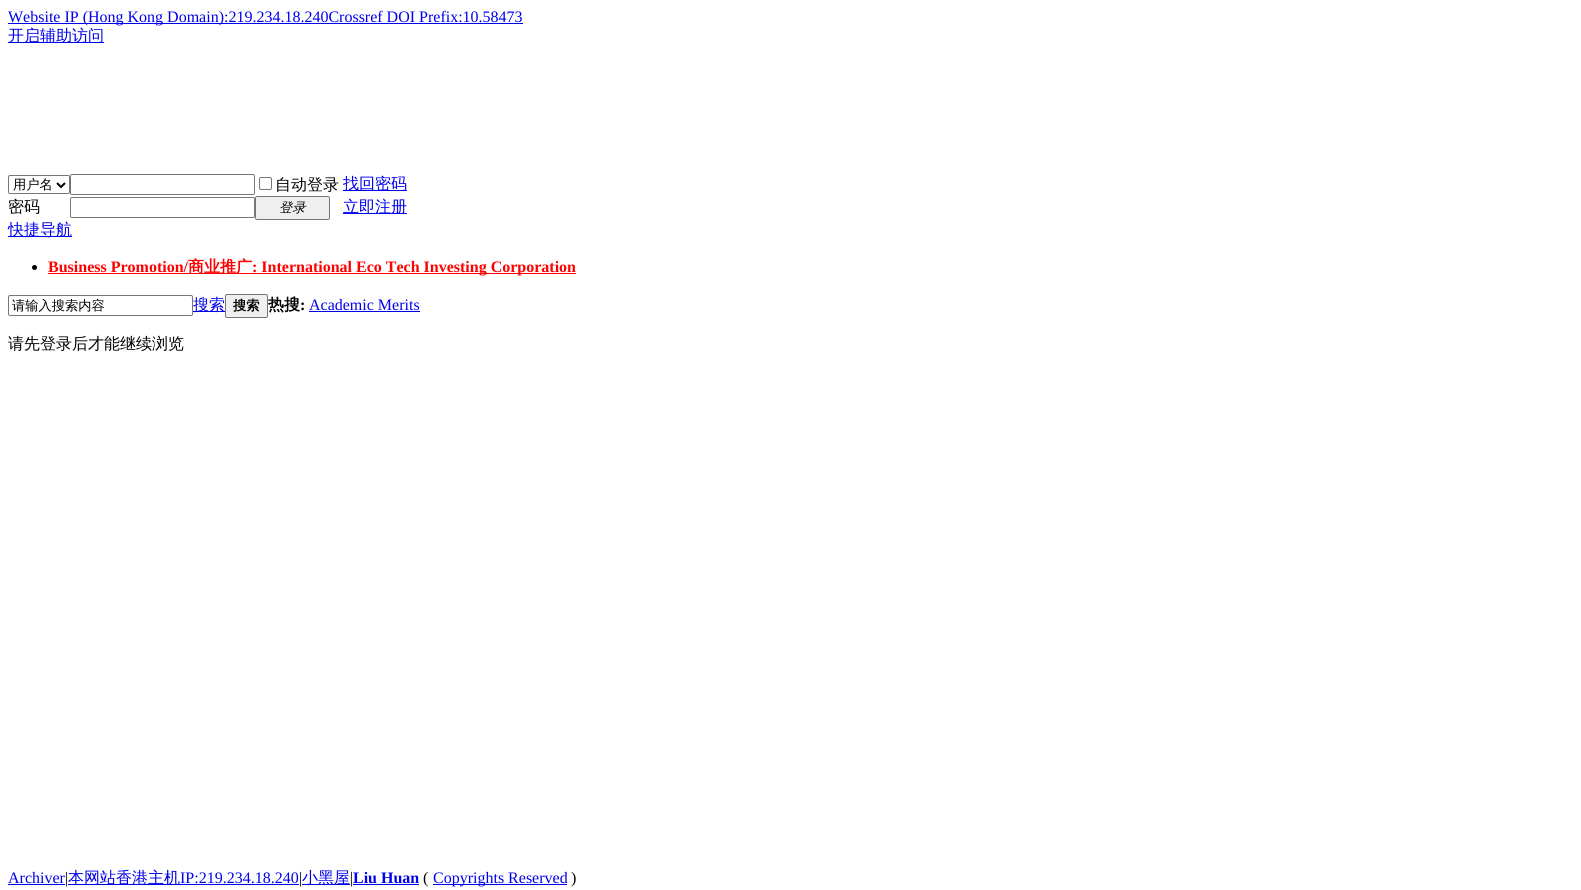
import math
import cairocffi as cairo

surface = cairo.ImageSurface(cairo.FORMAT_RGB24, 1581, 890)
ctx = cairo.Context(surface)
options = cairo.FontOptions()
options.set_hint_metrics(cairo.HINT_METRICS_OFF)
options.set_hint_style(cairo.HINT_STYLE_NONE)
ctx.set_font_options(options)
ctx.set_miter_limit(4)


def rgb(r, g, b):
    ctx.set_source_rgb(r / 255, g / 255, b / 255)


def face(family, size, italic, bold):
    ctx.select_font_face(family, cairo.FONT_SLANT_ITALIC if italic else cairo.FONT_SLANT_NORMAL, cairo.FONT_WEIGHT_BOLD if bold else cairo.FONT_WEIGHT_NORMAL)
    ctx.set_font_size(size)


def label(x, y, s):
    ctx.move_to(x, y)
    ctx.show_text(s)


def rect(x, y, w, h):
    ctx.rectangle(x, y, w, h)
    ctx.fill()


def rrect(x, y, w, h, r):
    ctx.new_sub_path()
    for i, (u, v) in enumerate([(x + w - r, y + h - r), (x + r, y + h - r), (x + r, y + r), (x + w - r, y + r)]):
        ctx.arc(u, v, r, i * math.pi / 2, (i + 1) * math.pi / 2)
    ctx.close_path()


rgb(255, 255, 255)
ctx.paint()
rgb(0, 0, 238)
rect(8, 23, 515, 1)
face('Liberation Serif', 16, 0, 0)
label(8, 22, 'Website IP (Hong Kong Domain):219.234.18.240Crossref DOI Prefix:10.58473')
rect(8, 42, 96, 1)
face('WenQuanYi Zen Hei Medium', 16, 0, 0)
label(8, 41, '开启辅助访问')
rrect(8.5, 175.5, 61, 18, 1.5)
rgb(118, 118, 118)
ctx.set_line_width(1)
ctx.stroke()
ctx.new_path()
ctx.move_to(57, 183)
ctx.line_to(61, 187)
ctx.line_to(65, 183)
rgb(0, 0, 0)
ctx.set_line_width(2)
ctx.stroke()
face('WenQuanYi Zen Hei Medium', 13.25, 0, 0)
label(13, 189, '用户名')
rrect(70.5, 174.5, 184, 20, 1.5)
rgb(118, 118, 118)
ctx.set_line_width(1)
ctx.stroke()
rrect(259.5, 177.5, 12, 12, 1.5)
ctx.stroke()
face('WenQuanYi Zen Hei Medium', 16, 0, 0)
rgb(0, 0, 0)
label(275, 190, '自动登录')
rgb(0, 0, 238)
rect(343, 190, 64, 1)
label(343, 189, '找回密码')
rgb(0, 0, 0)
label(8, 212, '密码')
rrect(70.5, 197.5, 184, 20, 1.5)
rgb(118, 118, 118)
ctx.stroke()
rgb(239, 239, 239)
rrect(255.5, 196.5, 74, 23, 1.5)
ctx.fill_preserve()
rgb(118, 118, 118)
ctx.stroke()
face('WenQuanYi Zen Hei Medium', 13.25, 1, 0)
rgb(0, 0, 0)
label(279, 212, '登录')
rgb(0, 0, 238)
rect(343, 213, 64, 1)
face('WenQuanYi Zen Hei Medium', 16, 0, 0)
label(343, 212, '立即注册')
rect(8, 236, 64, 1)
label(8, 235, '快捷导航')
rgb(0, 0, 0)
ctx.new_path()
ctx.arc(34.5, 267.5, 2.5, 0, 2 * math.pi)
ctx.fill()
face('Liberation Serif', 16, 0, 1)
rgb(255, 0, 0)
label(48, 272, 'Business Promotion/')
rect(48, 273, 528, 1)
face('WenQuanYi Zen Hei', 16, 0, 1)
label(188, 272, '商业推广')
face('Liberation Serif', 16, 0, 1)
label(252, 272, ': International Eco Tech Investing Corporation')
rrect(8.5, 295.5, 184, 20, 1.5)
rgb(118, 118, 118)
ctx.stroke()
face('WenQuanYi Zen Hei Medium', 13.25, 0, 0)
rgb(0, 0, 0)
label(12, 310, '请输入搜索内容')
rgb(0, 0, 238)
rect(193, 311, 32, 1)
face('WenQuanYi Zen Hei Medium', 16, 0, 0)
label(193, 310, '搜索')
rgb(239, 239, 239)
rrect(225.5, 294.5, 42, 23, 1.5)
ctx.fill_preserve()
rgb(118, 118, 118)
ctx.stroke()
face('WenQuanYi Zen Hei', 13.25, 0, 1)
rgb(0, 0, 0)
label(233, 310, '搜索')
face('WenQuanYi Zen Hei', 16, 0, 1)
label(268, 310, '热搜')
face('Liberation Serif', 16, 0, 1)
label(300, 310, ':')
face('Liberation Serif', 16, 0, 0)
rgb(0, 0, 238)
label(309, 310, 'Academic Merits')
rect(309, 311, 111, 1)
face('WenQuanYi Zen Hei Medium', 16, 0, 0)
rgb(0, 0, 0)
label(8, 349, '请先登录后才能继续浏览')
face('Liberation Serif', 16, 0, 0)
rgb(0, 0, 238)
label(8, 883, 'Archiver')
rect(8, 884, 57, 1)
rgb(0, 0, 0)
label(65, 883, '|')
rgb(0, 0, 238)
rect(68, 884, 231, 1)
face('WenQuanYi Zen Hei Medium', 16, 0, 0)
label(68, 883, '本网站香港主机')
face('Liberation Serif', 16, 0, 0)
label(180, 883, 'IP:219.234.18.240')
rgb(0, 0, 0)
label(299, 883, '|')
rgb(0, 0, 238)
rect(302, 884, 48, 1)
face('WenQuanYi Zen Hei Medium', 16, 0, 0)
label(302, 883, '小黑屋')
face('Liberation Serif', 16, 0, 0)
rgb(0, 0, 0)
label(350, 883, '|')
face('Liberation Serif', 16, 0, 1)
rgb(0, 0, 238)
label(353, 883, 'Liu Huan')
rect(353, 884, 66, 1)
face('Liberation Serif', 16, 0, 0)
rgb(0, 0, 0)
label(423, 883, '(')
rgb(0, 0, 238)
rect(433, 884, 134, 1)
label(433, 883, 'Copyrights Reserved')
rgb(0, 0, 0)
label(571, 883, ')')
surface.write_to_png('render.png')
